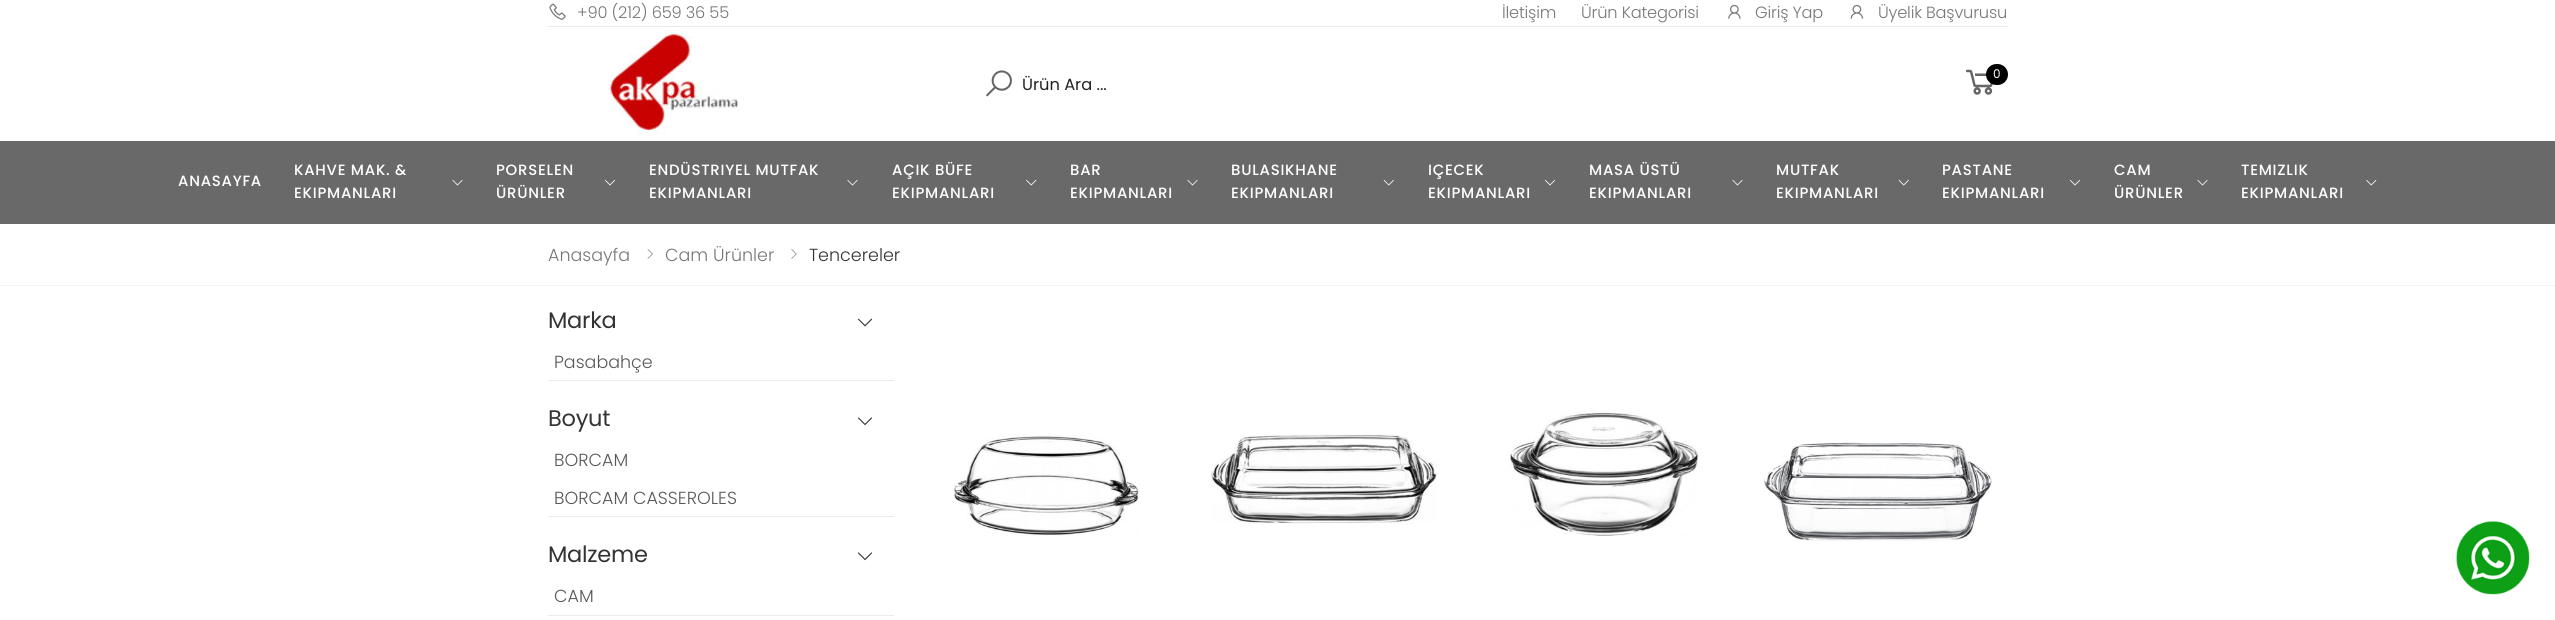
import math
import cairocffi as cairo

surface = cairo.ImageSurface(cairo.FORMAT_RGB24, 2555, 620)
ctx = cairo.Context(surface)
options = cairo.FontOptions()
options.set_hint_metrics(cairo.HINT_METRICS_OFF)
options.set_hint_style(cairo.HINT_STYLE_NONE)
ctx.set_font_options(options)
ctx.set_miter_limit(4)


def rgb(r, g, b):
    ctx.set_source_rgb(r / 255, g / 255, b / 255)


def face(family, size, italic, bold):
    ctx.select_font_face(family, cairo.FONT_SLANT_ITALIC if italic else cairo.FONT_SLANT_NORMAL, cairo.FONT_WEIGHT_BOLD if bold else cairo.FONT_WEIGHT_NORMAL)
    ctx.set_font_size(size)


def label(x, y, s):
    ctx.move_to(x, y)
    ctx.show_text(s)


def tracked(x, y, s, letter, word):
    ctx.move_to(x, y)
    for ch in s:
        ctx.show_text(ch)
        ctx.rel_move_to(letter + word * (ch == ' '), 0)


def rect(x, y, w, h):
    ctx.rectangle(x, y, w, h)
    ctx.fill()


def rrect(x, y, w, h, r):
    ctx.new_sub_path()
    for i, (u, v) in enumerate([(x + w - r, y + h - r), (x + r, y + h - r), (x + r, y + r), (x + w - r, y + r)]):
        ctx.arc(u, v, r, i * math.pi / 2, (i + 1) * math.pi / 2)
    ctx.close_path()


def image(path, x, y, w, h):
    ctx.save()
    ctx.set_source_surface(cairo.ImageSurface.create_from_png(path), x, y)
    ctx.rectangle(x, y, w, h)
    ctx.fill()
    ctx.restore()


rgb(255, 255, 255)
ctx.paint()
image('image0.png', 549, 3, 17, 17)
face('Poppins Light', 16.25, 0, 0)
rgb(119, 119, 119)
tracked(577, 18, '+90 (212) 659 36 55', -0.2, 0)
tracked(1502, 18, 'İletişim', -0.2, 0)
tracked(1581, 18, 'Ürün Kategorisi', -0.2, 0)
image('image1.png', 1728, 4, 13, 15)
tracked(1755, 18, 'Giriş Yap', -0.2, 0)
image('image2.png', 1850, 4, 14, 15)
tracked(1878, 18, 'Üyelik Başvurusu', -0.2, 0)
rgb(235, 235, 235)
rect(548, 26, 1460, 1)
image('image3.png', 610, 29, 129, 107)
image('image4.png', 1966, 69, 27, 26)
rgb(0, 0, 0)
rrect(1986, 64, 22, 21, 10.5)
ctx.fill()
face('Poppins', 12, 0, 0)
rgb(255, 255, 255)
label(1993, 78, '0')
image('image5.png', 986, 70, 26, 27)
face('Poppins', 16.25, 0, 0)
rgb(34, 34, 34)
label(1022, 90, 'Ürün Ara ...')
rgb(105, 105, 105)
rect(0, 141, 2555, 83)
face('Poppins Medium', 14.9, 0, 0)
rgb(255, 255, 255)
tracked(178, 186, 'ANASAYFA', 0.75, 0)
tracked(294, 175, 'KAHVE MAK. &', 0.75, 0)
image('image6.png', 452, 180, 11, 6)
tracked(294, 198, 'EKIPMANLARI', 0.75, 0)
tracked(496, 175, 'PORSELEN', 0.75, 0)
image('image7.png', 604, 179, 12, 7)
tracked(496, 198, 'ÜRÜNLER', 0.75, 0)
tracked(649, 175, 'ENDÜSTRIYEL MUTFAK', 0.75, 0)
image('image6.png', 847, 180, 11, 6)
tracked(649, 198, 'EKIPMANLARI', 0.75, 0)
tracked(892, 175, 'AÇIK BÜFE', 0.75, 0)
image('image8.png', 1026, 179, 11, 7)
tracked(892, 198, 'EKIPMANLARI', 0.75, 0)
tracked(1070, 175, 'BAR', 0.75, 0)
image('image6.png', 1187, 180, 11, 6)
tracked(1070, 198, 'EKIPMANLARI', 0.75, 0)
tracked(1231, 175, 'BULASIKHANE', 0.75, 0)
image('image9.png', 1383, 179, 11, 7)
tracked(1231, 198, 'EKIPMANLARI', 0.75, 0)
tracked(1428, 175, 'IÇECEK', 0.75, 0)
image('image7.png', 1544, 179, 12, 7)
tracked(1428, 198, 'EKIPMANLARI', 0.75, 0)
tracked(1589, 175, 'MASA ÜSTÜ', 0.75, 0)
image('image6.png', 1732, 180, 11, 6)
tracked(1589, 198, 'EKIPMANLARI', 0.75, 0)
tracked(1776, 175, 'MUTFAK', 0.75, 0)
image('image9.png', 1898, 179, 11, 7)
tracked(1776, 198, 'EKIPMANLARI', 0.75, 0)
tracked(1942, 175, 'PASTANE', 0.75, 0)
image('image7.png', 2069, 179, 12, 7)
tracked(1942, 198, 'EKIPMANLARI', 0.75, 0)
tracked(2114, 175, 'CAM', 0.75, 0)
image('image6.png', 2197, 180, 11, 6)
tracked(2114, 198, 'ÜRÜNLER', 0.75, 0)
tracked(2241, 175, 'TEMIZLIK', 0.75, 0)
image('image8.png', 2366, 179, 11, 7)
tracked(2241, 198, 'EKIPMANLARI', 0.75, 0)
rgb(244, 244, 244)
rect(0, 285, 2555, 1)
face('Poppins Light', 17.5, 0, 0)
rgb(119, 119, 119)
label(548, 261, 'Anasayfa')
image('image10.png', 647, 249, 6, 10)
label(665, 261, 'Cam Ürünler')
image('image11.png', 791, 249, 6, 10)
rgb(51, 51, 51)
label(809, 261, 'Tencereler')
rgb(235, 235, 235)
rect(548, 380, 346, 1)
face('Poppins', 22.5, 0, 0)
rgb(51, 51, 51)
tracked(548, 328, 'Marka', -0.25, 0)
image('image12.png', 857, 318, 16, 9)
face('Poppins Light', 17.5, 0, 0)
rgb(88, 88, 88)
label(554, 368, 'Pasabahçe')
rgb(235, 235, 235)
rect(548, 516, 346, 1)
face('Poppins', 22.5, 0, 0)
rgb(51, 51, 51)
tracked(548, 426, 'Boyut', -0.25, 0)
image('image13.png', 857, 417, 16, 9)
face('Poppins Light', 17.5, 0, 0)
rgb(88, 88, 88)
label(554, 466, 'BORCAM')
label(554, 504, 'BORCAM CASSEROLES')
rgb(235, 235, 235)
rect(548, 615, 346, 1)
face('Poppins', 22.5, 0, 0)
rgb(51, 51, 51)
tracked(548, 562, 'Malzeme', -0.25, 0)
image('image13.png', 857, 552, 16, 9)
face('Poppins Light', 17.5, 0, 0)
rgb(88, 88, 88)
label(554, 602, 'CAM')
image('image14.png', 953, 435, 187, 101)
image('image15.png', 1211, 434, 226, 90)
image('image16.png', 1509, 411, 190, 125)
image('image17.png', 1764, 442, 228, 99)
image('image18.png', 2456, 521, 74, 74)
surface.write_to_png('render.png')
